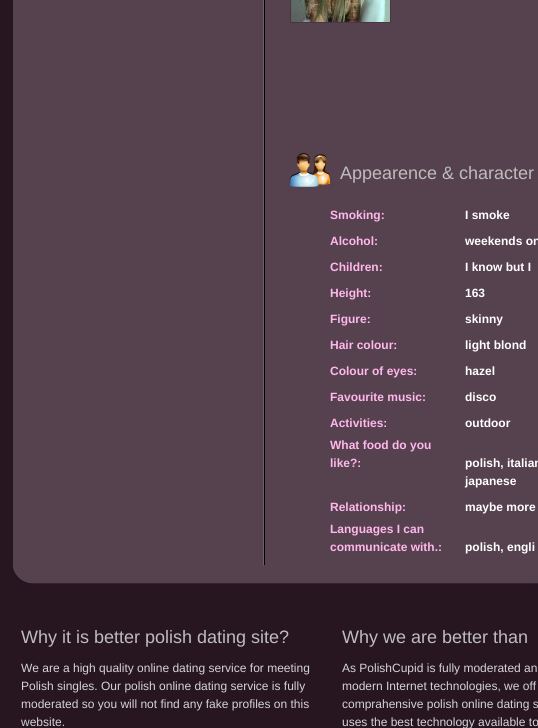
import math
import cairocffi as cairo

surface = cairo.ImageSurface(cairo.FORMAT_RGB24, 538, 728)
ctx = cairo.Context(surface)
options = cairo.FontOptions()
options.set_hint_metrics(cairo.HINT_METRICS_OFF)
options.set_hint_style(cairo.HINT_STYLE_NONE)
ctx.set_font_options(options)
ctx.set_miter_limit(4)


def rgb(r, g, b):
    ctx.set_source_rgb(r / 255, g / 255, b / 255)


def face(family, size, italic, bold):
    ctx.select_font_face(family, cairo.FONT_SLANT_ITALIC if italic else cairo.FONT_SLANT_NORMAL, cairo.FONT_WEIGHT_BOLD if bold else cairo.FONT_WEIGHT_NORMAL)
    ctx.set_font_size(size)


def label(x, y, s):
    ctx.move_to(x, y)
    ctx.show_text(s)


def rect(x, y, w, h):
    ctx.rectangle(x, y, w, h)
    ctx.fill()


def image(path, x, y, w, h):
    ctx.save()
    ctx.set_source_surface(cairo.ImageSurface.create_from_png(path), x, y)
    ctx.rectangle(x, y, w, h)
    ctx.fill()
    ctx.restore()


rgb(39, 22, 31)
ctx.paint()
rgb(86, 65, 78)
rect(13, 0, 525, 565)
image('image0.png', 263, 0, 2, 565)
ctx.rectangle(290.5, -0.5, 100, 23)
rgb(73, 54, 66)
ctx.set_line_width(1)
ctx.stroke()
image('image1.png', 291, 0, 99, 22)
image('image2.png', 290, 153, 40, 34)
face('Liberation Sans', 18, 0, 0)
rgb(189, 189, 189)
label(340, 179, 'Appearence & character')
face('Liberation Sans', 12, 0, 1)
rgb(255, 183, 236)
label(330, 219, 'Smoking:')
rgb(255, 255, 255)
label(465, 219, 'I smoke')
rgb(255, 183, 236)
label(330, 245, 'Alcohol:')
rgb(255, 255, 255)
label(465, 245, 'weekends on')
rgb(255, 183, 236)
label(330, 271, 'Children:')
rgb(255, 255, 255)
label(465, 271, 'I know but I')
rgb(255, 183, 236)
label(330, 297, 'Height:')
rgb(255, 255, 255)
label(465, 297, '163')
rgb(255, 183, 236)
label(330, 323, 'Figure:')
rgb(255, 255, 255)
label(465, 323, 'skinny')
rgb(255, 183, 236)
label(330, 349, 'Hair colour:')
rgb(255, 255, 255)
label(465, 349, 'light blond')
rgb(255, 183, 236)
label(330, 375, 'Colour of eyes:')
rgb(255, 255, 255)
label(465, 375, 'hazel')
rgb(255, 183, 236)
label(330, 401, 'Favourite music:')
rgb(255, 255, 255)
label(465, 401, 'disco')
rgb(255, 183, 236)
label(330, 427, 'Activities:')
rgb(255, 255, 255)
label(465, 427, 'outdoor')
rgb(255, 183, 236)
label(330, 449, 'What food do you')
label(330, 467, 'like?:')
rgb(255, 255, 255)
label(465, 467, 'polish, italian')
label(465, 485, 'japanese')
rgb(255, 183, 236)
label(330, 511, 'Relationship:')
rgb(255, 255, 255)
label(465, 511, 'maybe more')
rgb(255, 183, 236)
label(330, 533, 'Languages I can')
label(330, 551, 'communicate with.:')
rgb(255, 255, 255)
label(465, 551, 'polish, engli')
image('image3.png', 12, 565, 526, 19)
face('Liberation Sans', 18, 0, 0)
rgb(189, 189, 189)
label(21, 643, 'Why it is better polish dating site?')
face('Liberation Sans', 12, 0, 0)
rgb(212, 212, 212)
label(21, 672, 'We are a high quality online dating service for meeting')
label(21, 690, 'Polish singles. Our polish online dating service is fully')
label(21, 708, 'moderated so you will not find any fake profiles on this')
label(21, 726, 'website.')
face('Liberation Sans', 18, 0, 0)
rgb(189, 189, 189)
label(342, 643, 'Why we are better than')
face('Liberation Sans', 12, 0, 0)
rgb(212, 212, 212)
label(342, 672, 'As PolishCupid is fully moderated an')
label(342, 690, 'modern Internet technologies, we off')
label(342, 708, 'comprahensive polish online dating s')
label(342, 726, 'uses the best technology available to')
surface.write_to_png('render.png')
